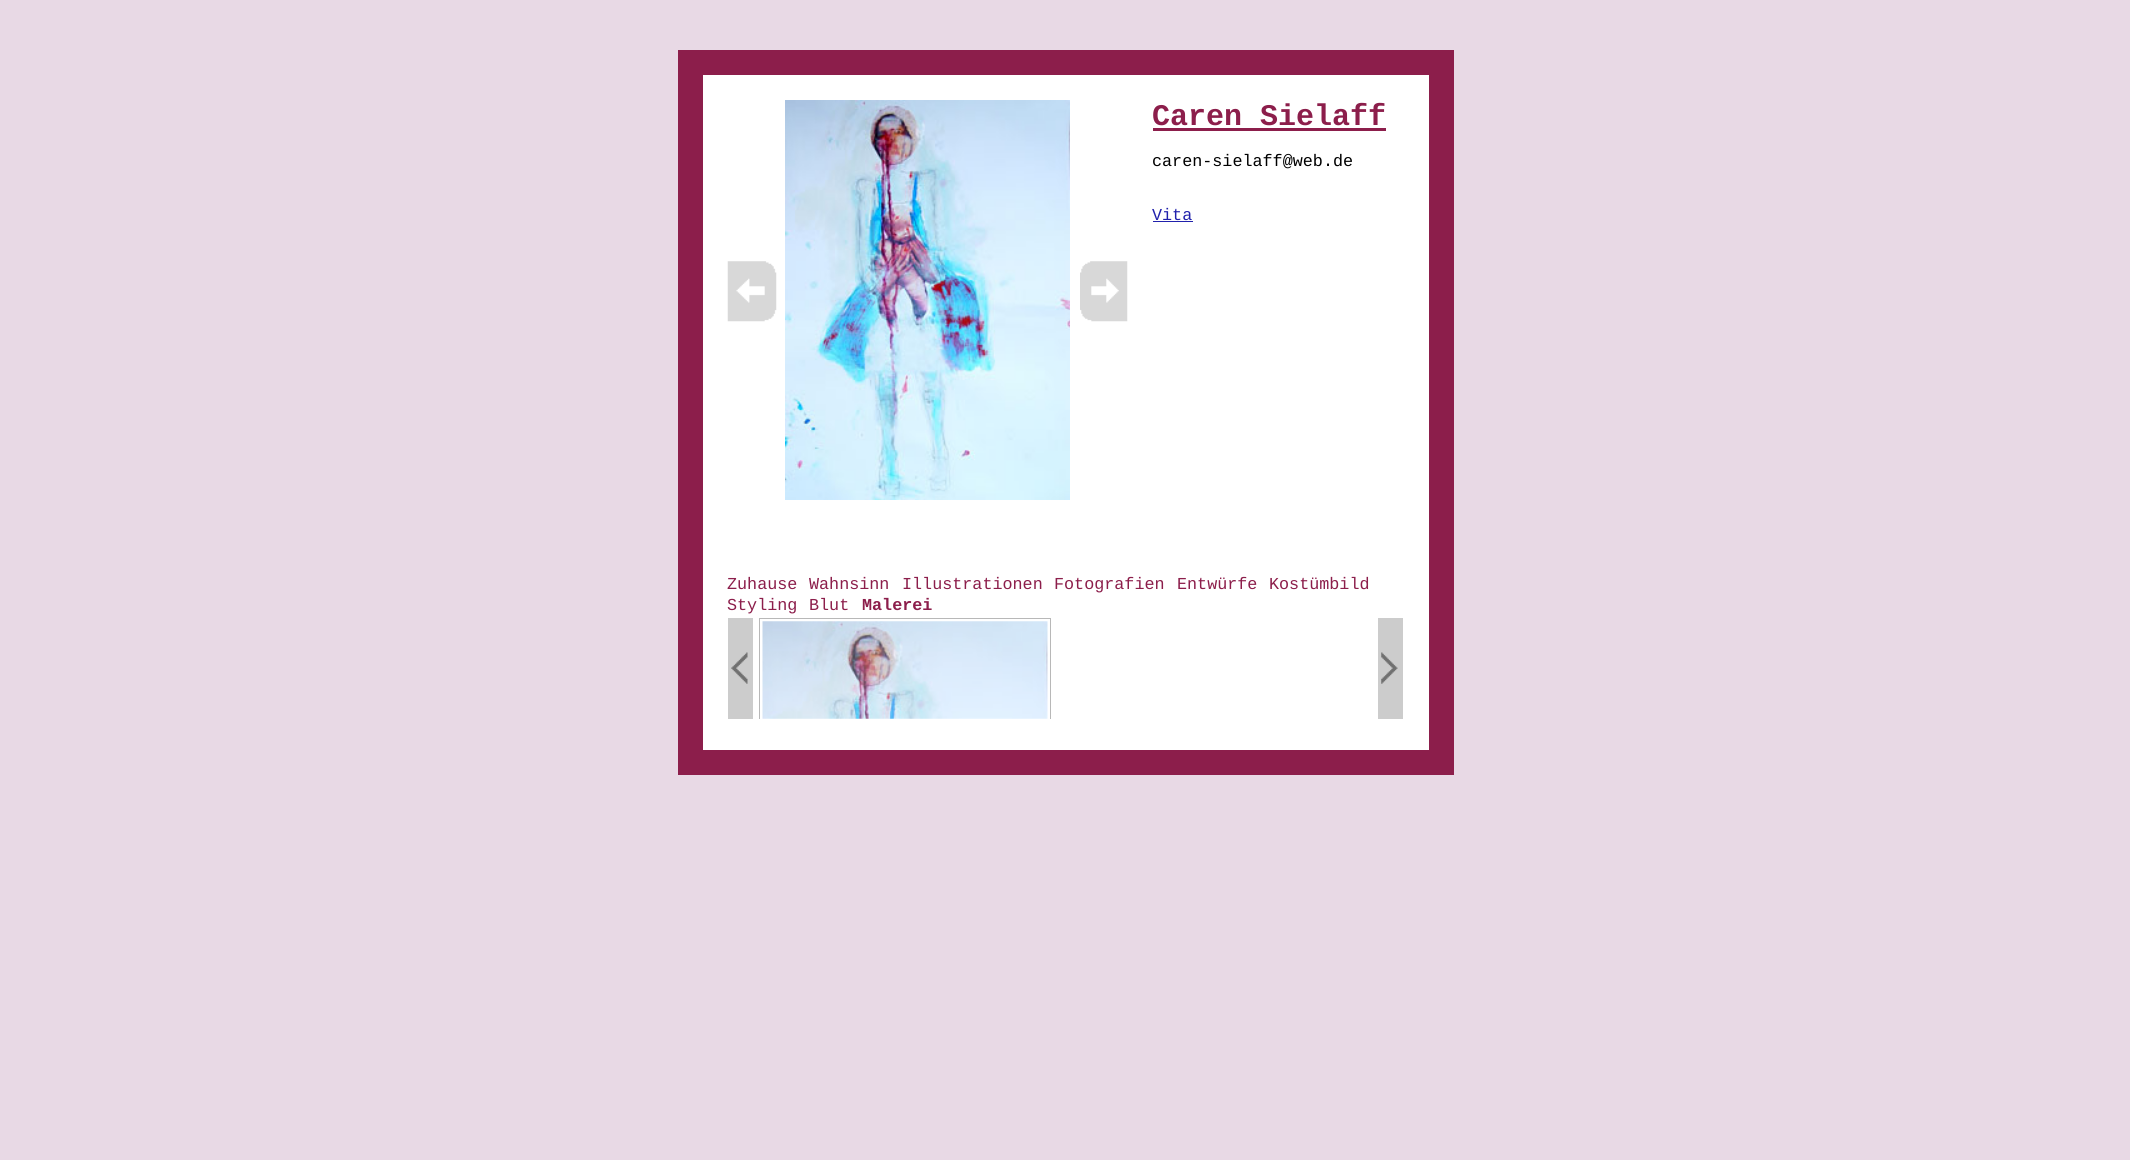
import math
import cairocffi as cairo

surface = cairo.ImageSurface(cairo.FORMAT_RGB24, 2130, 1160)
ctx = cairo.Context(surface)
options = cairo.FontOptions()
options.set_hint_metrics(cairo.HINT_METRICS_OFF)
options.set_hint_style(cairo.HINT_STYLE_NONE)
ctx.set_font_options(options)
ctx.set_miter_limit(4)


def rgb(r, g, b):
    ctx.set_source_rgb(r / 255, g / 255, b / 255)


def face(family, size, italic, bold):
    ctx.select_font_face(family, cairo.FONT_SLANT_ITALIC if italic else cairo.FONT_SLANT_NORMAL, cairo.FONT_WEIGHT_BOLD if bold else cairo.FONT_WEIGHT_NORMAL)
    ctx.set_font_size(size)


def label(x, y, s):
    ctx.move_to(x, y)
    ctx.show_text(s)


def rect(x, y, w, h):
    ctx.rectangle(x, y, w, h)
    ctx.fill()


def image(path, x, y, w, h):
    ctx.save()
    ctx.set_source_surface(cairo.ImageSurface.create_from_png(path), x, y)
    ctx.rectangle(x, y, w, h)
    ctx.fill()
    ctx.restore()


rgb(232, 217, 229)
ctx.paint()
rgb(255, 255, 255)
ctx.rectangle(690.5, 62.5, 751, 700)
ctx.fill_preserve()
rgb(140, 30, 75)
ctx.set_line_width(25)
ctx.stroke()
image('image0.png', 727, 261, 50, 61)
image('image1.png', 785, 100, 285, 400)
image('image2.png', 1080, 261, 48, 61)
face('Liberation Mono', 30, 0, 1)
label(1152, 125, 'Caren Sielaff')
rect(1153, 128, 233, 3)
face('Liberation Mono', 16.75, 0, 0)
rgb(0, 0, 0)
label(1152, 166, 'caren-sielaff@web.de')
rgb(33, 33, 172)
label(1152, 220, 'Vita')
rect(1153, 221, 40, 1)
rgb(140, 30, 75)
label(727, 589, 'Zuhause')
label(809, 589, 'Wahnsinn')
label(902, 589, 'Illustrationen')
label(1054, 589, 'Fotografien')
label(1177, 589, 'Entwürfe')
label(1269, 589, 'Kostümbild')
label(727, 610, 'Styling')
label(809, 610, 'Blut')
face('Liberation Mono', 16.75, 0, 1)
label(862, 610, 'Malerei')
rgb(204, 204, 204)
rect(728, 618, 25, 101)
image('image3.png', 731, 652, 17, 32)
ctx.save()
ctx.rectangle(759, 618, 610, 101)
ctx.clip()
ctx.rectangle(759.5, 618.5, 291, 406)
rgb(184, 184, 184)
ctx.set_line_width(1)
ctx.stroke()
ctx.restore()
image('image4.png', 762, 621, 286, 98)
rect(1378, 618, 25, 101)
image('image5.png', 1381, 652, 17, 32)
surface.write_to_png('render.png')
